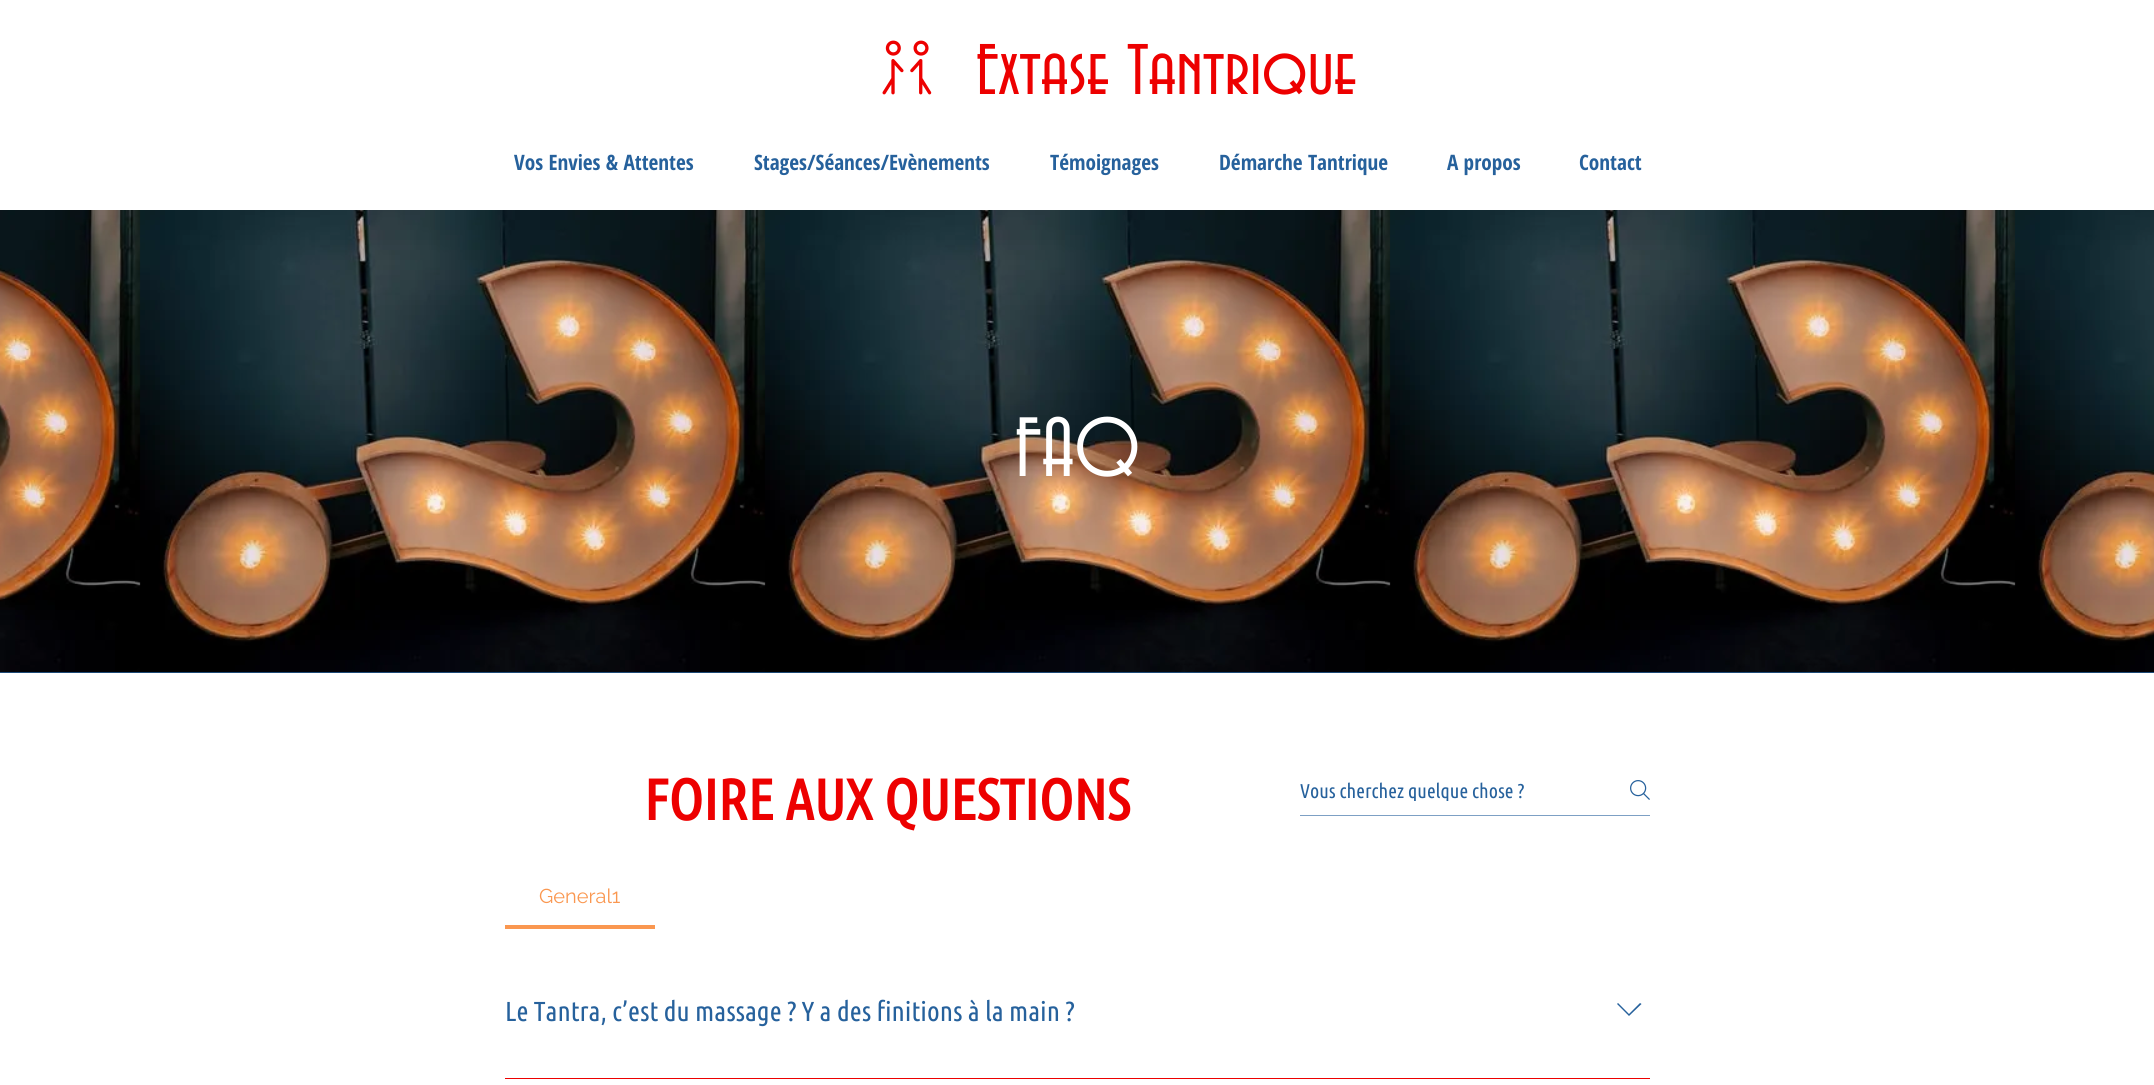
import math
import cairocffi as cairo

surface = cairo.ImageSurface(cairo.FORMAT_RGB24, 2154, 1085)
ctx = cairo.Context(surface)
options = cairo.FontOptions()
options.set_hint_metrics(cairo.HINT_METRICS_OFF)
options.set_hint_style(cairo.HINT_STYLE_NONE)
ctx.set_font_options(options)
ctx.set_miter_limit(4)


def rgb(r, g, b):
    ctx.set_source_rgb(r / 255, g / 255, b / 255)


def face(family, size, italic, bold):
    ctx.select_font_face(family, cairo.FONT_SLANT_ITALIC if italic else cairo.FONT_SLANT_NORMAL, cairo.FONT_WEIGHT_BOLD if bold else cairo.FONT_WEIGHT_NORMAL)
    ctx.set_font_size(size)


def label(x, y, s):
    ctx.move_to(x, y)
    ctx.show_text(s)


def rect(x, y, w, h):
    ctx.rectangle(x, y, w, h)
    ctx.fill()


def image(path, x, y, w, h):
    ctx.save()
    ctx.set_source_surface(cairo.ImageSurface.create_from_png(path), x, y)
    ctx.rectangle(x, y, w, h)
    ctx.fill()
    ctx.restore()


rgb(255, 255, 255)
ctx.paint()
image('image0.png', 882, 40, 50, 55)
face('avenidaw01', 75, 0, 0)
rgb(237, 0, 0)
label(976, 94, 'Extase Tantrique')
face('Open Sans Condensed', 21.25, 0, 1)
rgb(38, 97, 156)
label(514, 170, 'Vos Envies & Attentes')
label(754, 170, 'Stages/Séances/Evènements')
label(1050, 170, 'Témoignages')
label(1219, 170, 'Démarche Tantrique')
label(1447, 170, 'A propos')
label(1579, 170, 'Contact')
rect(0, 672, 2154, 1)
image('image1.png', 0, 210, 2154, 463)
face('avenidaw01', 88, 0, 0)
rgb(255, 255, 255)
label(1015, 476, 'FAQ')
face('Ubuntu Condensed', 57.5, 0, 1)
rgb(237, 0, 0)
label(644, 820, 'FOIRE AUX QUESTIONS')
rgb(125, 160, 196)
rect(1300, 815, 350, 1)
ctx.save()
ctx.rectangle(1300, 779, 320, 22)
ctx.clip()
face('Ubuntu Condensed', 20, 0, 0)
rgb(38, 97, 156)
label(1300, 798, 'Vous cherchez quelque chose ?')
ctx.restore()
image('image2.png', 1630, 780, 20, 20)
rgb(250, 151, 80)
rect(505, 925, 150, 4)
face('Raleway', 20, 0, 0)
label(539, 903, 'General1')
face('Ubuntu Condensed', 27.5, 0, 0)
rgb(38, 97, 156)
label(505, 1021, 'Le Tantra, c’est du massage ? Y a des finitions à la main ?')
ctx.set_fill_rule(cairo.FILL_RULE_EVEN_ODD)
ctx.new_path()
ctx.move_to(1640, 1003)
ctx.line_to(1641.5, 1004)
ctx.line_to(1629, 1016)
ctx.line_to(1617, 1004)
ctx.line_to(1618, 1003)
ctx.line_to(1629, 1014)
ctx.close_path()
ctx.fill()
rgb(237, 0, 0)
rect(505, 1078, 1145, 1)
surface.write_to_png('render.png')
